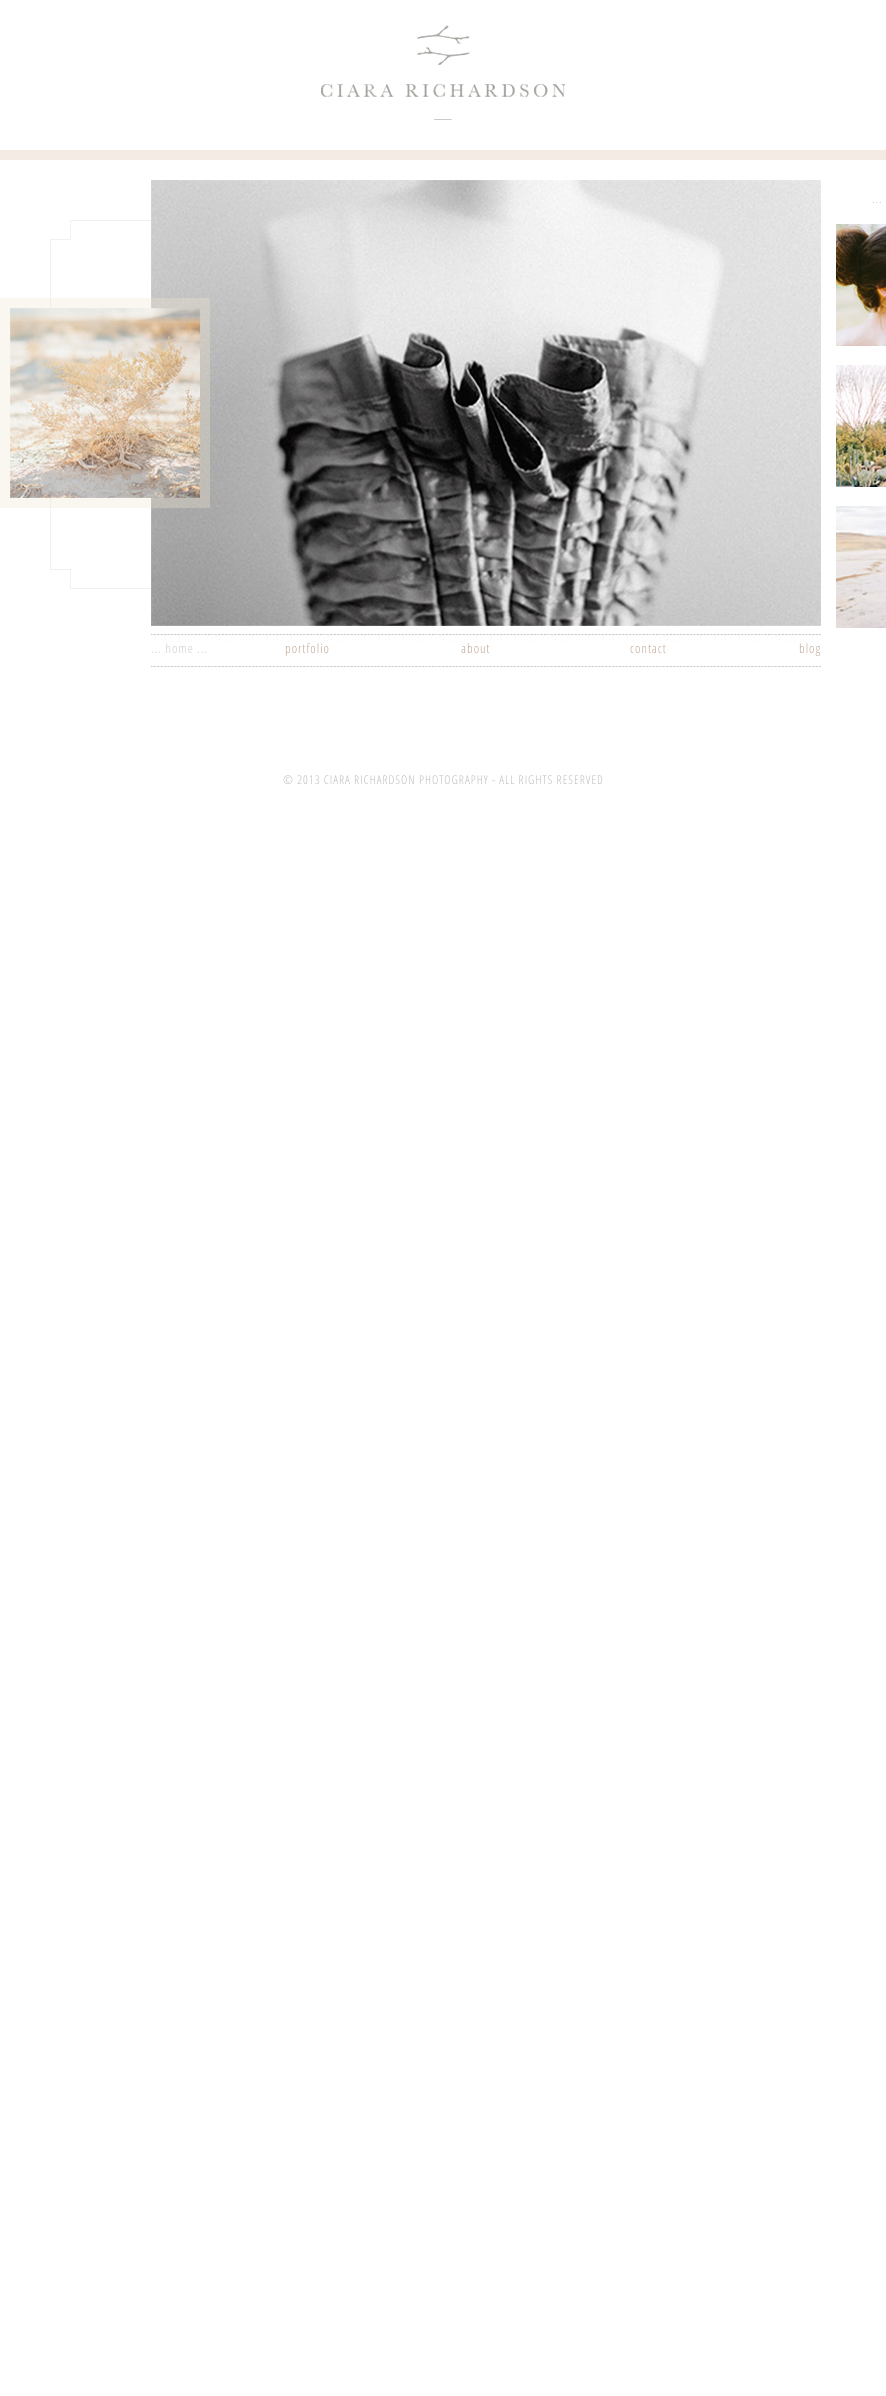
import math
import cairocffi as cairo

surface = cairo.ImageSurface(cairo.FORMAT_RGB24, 886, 2396)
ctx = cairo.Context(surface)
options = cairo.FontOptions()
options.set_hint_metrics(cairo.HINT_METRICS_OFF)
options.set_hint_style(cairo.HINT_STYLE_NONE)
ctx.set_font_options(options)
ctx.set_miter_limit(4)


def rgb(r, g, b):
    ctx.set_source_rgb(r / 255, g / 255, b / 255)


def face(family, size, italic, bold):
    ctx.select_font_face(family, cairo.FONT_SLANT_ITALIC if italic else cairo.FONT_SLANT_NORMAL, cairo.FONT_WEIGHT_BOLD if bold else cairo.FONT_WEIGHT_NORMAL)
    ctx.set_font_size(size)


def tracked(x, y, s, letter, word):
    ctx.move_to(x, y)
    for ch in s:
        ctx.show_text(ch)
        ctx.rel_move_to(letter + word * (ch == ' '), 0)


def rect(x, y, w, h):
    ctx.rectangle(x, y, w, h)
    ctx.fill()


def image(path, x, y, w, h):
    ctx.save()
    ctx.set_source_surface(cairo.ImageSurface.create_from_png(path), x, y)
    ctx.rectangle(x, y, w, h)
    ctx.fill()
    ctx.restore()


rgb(255, 255, 255)
ctx.paint()
image('image0.png', 321, 25, 244, 95)
image('image1.png', 50, 220, 101, 369)
rgb(245, 235, 229)
rect(0, 150, 886, 10)
image('image2.png', 151, 180, 670, 446)
face('Open Sans Light', 12, 0, 0)
rgb(187, 187, 187)
tracked(872, 203, '...', 1, 0)
image('image3.png', 836, 224, 50, 122)
image('image4.png', 836, 365, 50, 122)
image('image5.png', 836, 506, 50, 122)
image('image6.png', 0, 298, 210, 210)
image('image7.png', 151, 634, 670, 33)
face('Open Sans Light', 13, 0, 0)
rgb(204, 204, 204)
tracked(151, 653, '... home ...', 1, 0)
rgb(191, 164, 147)
tracked(285, 653, 'portfolio', 1, 0)
tracked(461, 653, 'about', 1, 0)
tracked(630, 653, 'contact', 1, 0)
tracked(799, 653, 'blog', 1, 0)
face('Open Sans Light', 12, 0, 0)
rgb(187, 187, 187)
tracked(283, 784, '© 2013 CIARA RICHARDSON PHOTOGRAPHY - ALL RIGHTS RESERVED', 1, 0)
surface.write_to_png('render.png')
